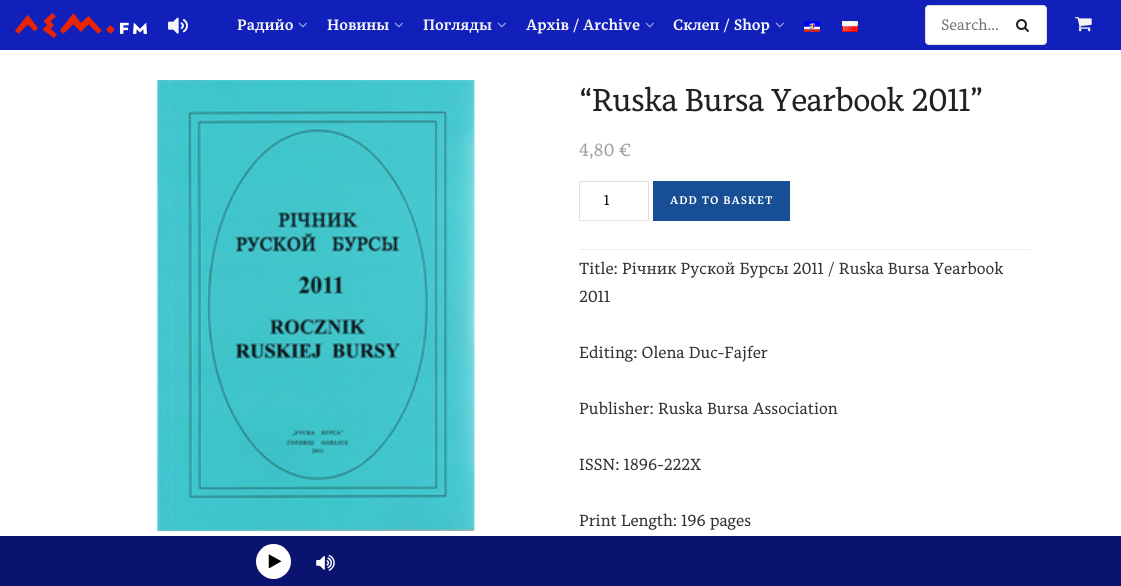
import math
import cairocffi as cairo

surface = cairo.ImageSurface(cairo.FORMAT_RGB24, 1121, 586)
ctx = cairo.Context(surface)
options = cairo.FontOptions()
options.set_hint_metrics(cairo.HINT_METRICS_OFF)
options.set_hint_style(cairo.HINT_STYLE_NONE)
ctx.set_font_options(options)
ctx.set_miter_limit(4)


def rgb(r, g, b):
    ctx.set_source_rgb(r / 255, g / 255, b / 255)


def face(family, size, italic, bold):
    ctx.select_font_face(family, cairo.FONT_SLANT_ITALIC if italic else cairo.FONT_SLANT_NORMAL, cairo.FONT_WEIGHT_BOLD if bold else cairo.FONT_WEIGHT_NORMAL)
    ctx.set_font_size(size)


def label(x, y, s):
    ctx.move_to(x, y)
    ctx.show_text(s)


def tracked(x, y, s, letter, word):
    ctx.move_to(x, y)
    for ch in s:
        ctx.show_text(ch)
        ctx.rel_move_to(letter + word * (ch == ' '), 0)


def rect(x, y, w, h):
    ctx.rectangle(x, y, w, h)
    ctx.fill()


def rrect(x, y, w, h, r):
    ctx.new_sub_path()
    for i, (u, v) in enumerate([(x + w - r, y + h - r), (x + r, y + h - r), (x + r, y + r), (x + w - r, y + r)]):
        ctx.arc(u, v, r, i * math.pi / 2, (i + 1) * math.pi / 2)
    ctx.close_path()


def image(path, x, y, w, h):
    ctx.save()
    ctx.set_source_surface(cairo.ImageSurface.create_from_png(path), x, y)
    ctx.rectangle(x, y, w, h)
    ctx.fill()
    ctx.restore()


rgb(255, 255, 255)
ctx.paint()
rgb(17, 32, 187)
rect(0, 0, 1121, 50)
image('image0.png', 15, 13, 132, 25)
image('image1.png', 168, 17, 20, 17)
face('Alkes', 15, 0, 1)
rgb(245, 245, 245)
label(237, 30, 'Радийо')
image('image2.png', 298, 22, 9, 6)
label(327, 30, 'Новины')
image('image2.png', 394, 22, 9, 6)
label(423, 30, 'Погляды')
image('image2.png', 497, 22, 9, 6)
label(526, 30, 'Архів / Archive')
image('image2.png', 645, 22, 9, 6)
label(673, 30, 'Склеп / Shop')
image('image2.png', 775, 22, 9, 6)
image('image3.png', 804, 21, 16, 11)
image('image4.png', 842, 21, 16, 11)
rgb(255, 255, 255)
rrect(925.5, 5.5, 121, 39, 3.5)
ctx.fill_preserve()
rgb(224, 224, 224)
ctx.set_line_width(1)
ctx.stroke()
face('Alkes', 15, 0, 0)
rgb(117, 117, 117)
label(941, 30, 'Search...')
image('image5.png', 1016, 19, 13, 13)
image('image6.png', 1075, 17, 17, 15)
image('image7.png', 156, 80, 319, 451)
face('Alkes', 31.5, 0, 0)
rgb(33, 33, 33)
tracked(579, 111, '“Ruska Bursa Yearbook 2011”', -0.6, 0)
face('Alkes', 17.5, 0, 0)
rgb(160, 160, 160)
label(579, 156, '4,80 €')
ctx.rectangle(579.5, 181.5, 69, 39)
rgb(224, 224, 224)
ctx.stroke()
face('Alkes', 14, 0, 0)
rgb(0, 0, 0)
label(604, 205, '1')
rgb(23, 78, 150)
rect(653, 181, 137, 40)
face('Alkes', 11, 0, 1)
rgb(255, 255, 255)
tracked(670, 204, 'ADD TO BASKET', 1, 0)
rgb(238, 238, 238)
rect(579, 249, 452, 1)
face('Alkes', 16, 0, 0)
rgb(51, 51, 51)
label(579, 274, 'Title: Річник Руской Бурсы 2011 / Ruska Bursa Yearbook')
label(579, 302, '2011')
label(579, 358, 'Editing: Olena Duc-Fajfer')
label(579, 414, 'Publisher: Ruska Bursa Association')
label(579, 470, 'ISSN: 1896-222X')
label(579, 526, 'Print Length: 196 pages')
image('image8.png', 0, 536, 1121, 50)
surface.write_to_png('render.png')
